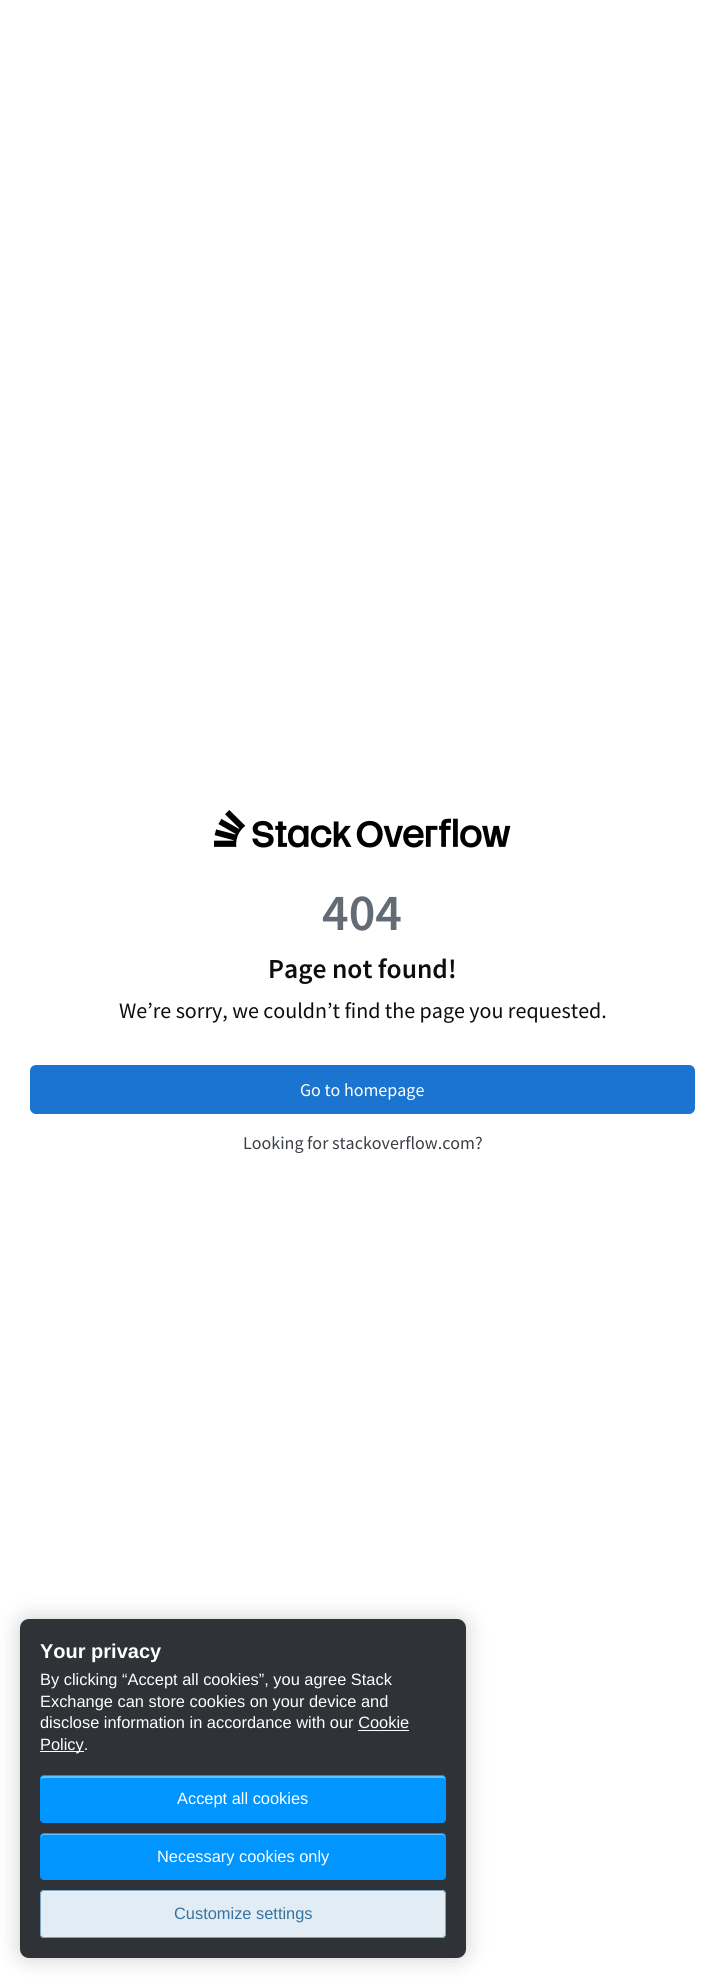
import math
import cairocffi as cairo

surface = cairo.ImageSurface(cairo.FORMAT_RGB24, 725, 1977)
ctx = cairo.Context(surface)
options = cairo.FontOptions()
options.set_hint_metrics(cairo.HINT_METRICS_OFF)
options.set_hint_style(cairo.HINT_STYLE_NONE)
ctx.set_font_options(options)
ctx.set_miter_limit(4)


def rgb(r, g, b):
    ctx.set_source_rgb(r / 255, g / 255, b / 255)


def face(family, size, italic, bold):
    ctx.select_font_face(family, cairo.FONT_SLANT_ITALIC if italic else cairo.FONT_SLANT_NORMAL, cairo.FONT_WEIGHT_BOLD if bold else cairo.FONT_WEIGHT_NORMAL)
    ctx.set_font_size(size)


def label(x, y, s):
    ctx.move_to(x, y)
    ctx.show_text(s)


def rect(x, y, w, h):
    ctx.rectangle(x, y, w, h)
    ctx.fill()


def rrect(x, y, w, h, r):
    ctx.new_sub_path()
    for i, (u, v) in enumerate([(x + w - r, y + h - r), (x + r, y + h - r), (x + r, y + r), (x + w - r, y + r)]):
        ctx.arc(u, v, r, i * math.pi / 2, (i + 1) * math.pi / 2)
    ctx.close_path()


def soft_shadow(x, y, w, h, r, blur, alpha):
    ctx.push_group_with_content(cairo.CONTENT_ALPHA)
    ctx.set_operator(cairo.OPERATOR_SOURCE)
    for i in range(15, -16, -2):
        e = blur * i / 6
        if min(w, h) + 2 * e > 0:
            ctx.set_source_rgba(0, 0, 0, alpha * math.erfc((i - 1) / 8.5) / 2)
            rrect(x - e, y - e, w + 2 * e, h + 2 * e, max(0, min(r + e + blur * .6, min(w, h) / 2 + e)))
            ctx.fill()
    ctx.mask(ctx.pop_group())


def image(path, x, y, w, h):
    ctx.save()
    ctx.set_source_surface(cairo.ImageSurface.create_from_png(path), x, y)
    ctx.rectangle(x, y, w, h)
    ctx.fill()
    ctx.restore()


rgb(255, 255, 255)
ctx.paint()
image('image0.png', 214, 810, 297, 38)
face('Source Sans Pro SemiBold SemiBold', 52, 0, 0)
rgb(99, 107, 116)
label(322, 930, '404')
face('Source Sans Pro SemiBold SemiBold', 27.5, 0, 0)
rgb(12, 13, 14)
label(268, 978, 'Page not found!')
face('Source Sans Pro', 22, 0, 0)
label(119, 1018, 'We’re sorry, we couldn’t find the page you requested.')
rgb(27, 117, 208)
rrect(30, 1065, 665, 49, 6)
ctx.fill()
face('Source Sans Pro', 18, 0, 0)
rgb(255, 255, 255)
label(300, 1096, 'Go to homepage')
rgb(59, 64, 69)
label(243, 1149, 'Looking for stackoverflow.com?')
rgb(0, 0, 0)
soft_shadow(20, 1619, 446, 339, 9, 11, 0.2)
rgb(47, 51, 55)
rrect(20, 1619, 446, 339, 9)
ctx.fill()
face('Liberation Sans', 20, 0, 1)
rgb(255, 255, 255)
label(40, 1658, 'Your privacy')
face('Liberation Sans', 16.4, 0, 0)
label(40, 1685, 'By clicking “Accept all cookies”, you agree Stack')
label(40, 1707, 'Exchange can store cookies on your device and')
label(40, 1728, 'disclose information in accordance with our Cookie')
rect(40, 1751, 44, 1)
label(40, 1750, 'Policy.')
rect(358, 1730, 51, 1)
rgb(0, 149, 255)
rrect(40, 1775, 406, 48, 4)
ctx.fill()
rgb(102, 191, 255)
ctx.new_path()
ctx.move_to(44, 1778)
ctx.line_to(442, 1778)
ctx.curve_to(444, 1778, 445, 1779, 445, 1780)
ctx.curve_to(445, 1778, 445, 1776, 442, 1776)
ctx.line_to(44, 1776)
ctx.line_to(41, 1777)
ctx.line_to(41, 1780)
ctx.curve_to(41, 1779, 42, 1778, 44, 1778)
ctx.close_path()
ctx.fill()
rgb(255, 255, 255)
label(177, 1804, 'Accept all cookies')
rgb(0, 149, 255)
rrect(40, 1833, 406, 47, 4)
ctx.fill()
rgb(102, 191, 255)
ctx.new_path()
ctx.move_to(44, 1835)
ctx.line_to(442, 1835)
ctx.curve_to(444, 1835, 445, 1836, 445, 1838)
ctx.curve_to(445, 1836, 445, 1834, 442, 1834)
ctx.line_to(44, 1834)
ctx.line_to(41, 1835)
ctx.line_to(41, 1838)
ctx.curve_to(41, 1836, 42, 1835, 44, 1835)
ctx.close_path()
ctx.fill()
rgb(255, 255, 255)
label(157, 1862, 'Necessary cookies only')
rgb(225, 236, 244)
rrect(40, 1890, 406, 48, 4)
ctx.fill()
rgb(237, 244, 248)
ctx.new_path()
ctx.move_to(44, 1892)
ctx.line_to(442, 1892)
ctx.curve_to(444, 1892, 445, 1894, 445, 1895)
ctx.curve_to(445, 1893, 445, 1891, 442, 1891)
ctx.line_to(44, 1891)
ctx.line_to(41, 1892)
ctx.line_to(41, 1895)
ctx.curve_to(41, 1894, 42, 1892, 44, 1892)
ctx.close_path()
ctx.fill()
rrect(40.5, 1890.5, 405, 47, 3.5)
rgb(122, 167, 199)
ctx.set_line_width(1)
ctx.stroke()
rgb(57, 115, 157)
label(174, 1919, 'Customize settings')
surface.write_to_png('render.png')
